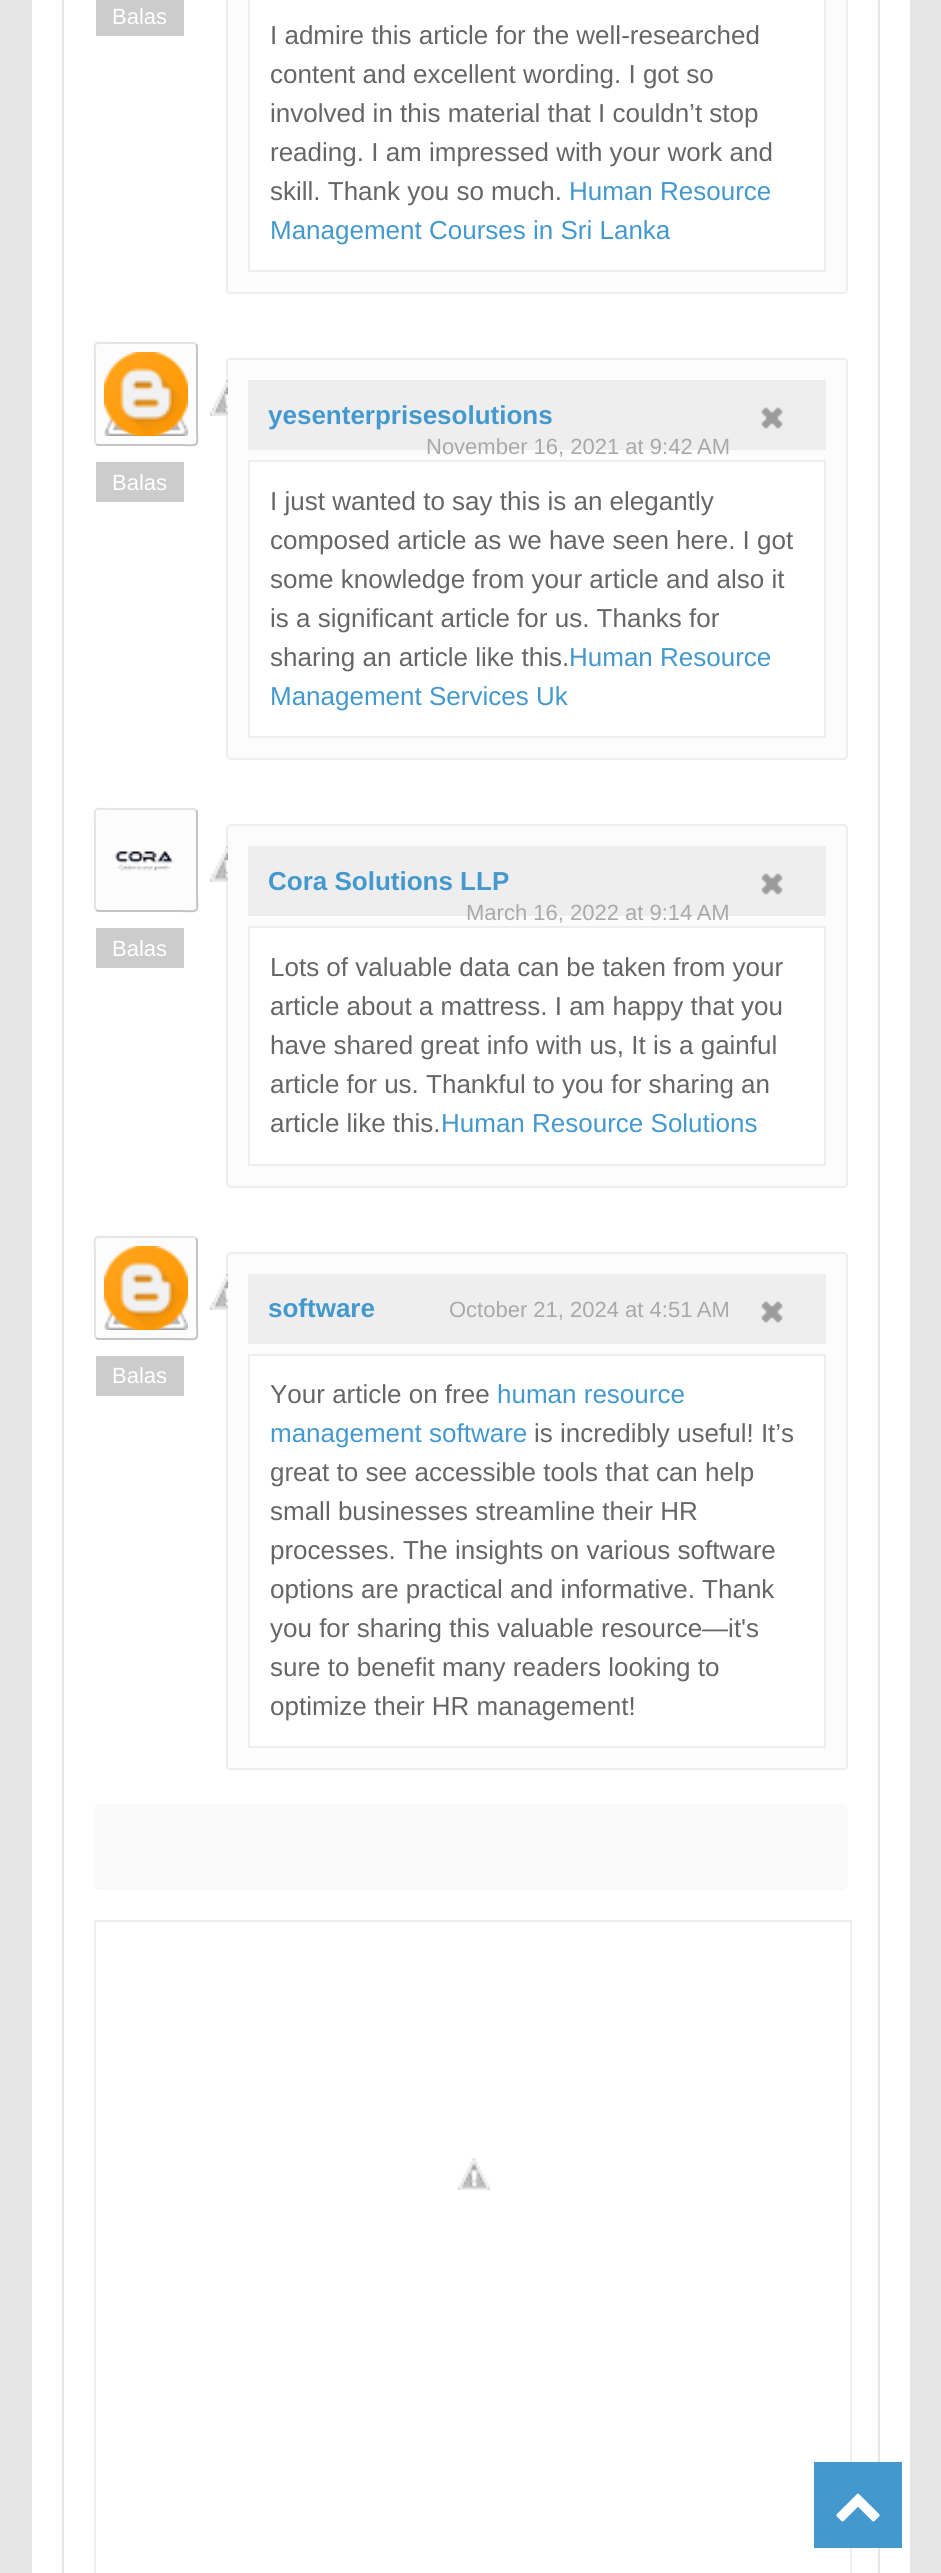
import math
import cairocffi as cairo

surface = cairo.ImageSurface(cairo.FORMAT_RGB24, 941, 2573)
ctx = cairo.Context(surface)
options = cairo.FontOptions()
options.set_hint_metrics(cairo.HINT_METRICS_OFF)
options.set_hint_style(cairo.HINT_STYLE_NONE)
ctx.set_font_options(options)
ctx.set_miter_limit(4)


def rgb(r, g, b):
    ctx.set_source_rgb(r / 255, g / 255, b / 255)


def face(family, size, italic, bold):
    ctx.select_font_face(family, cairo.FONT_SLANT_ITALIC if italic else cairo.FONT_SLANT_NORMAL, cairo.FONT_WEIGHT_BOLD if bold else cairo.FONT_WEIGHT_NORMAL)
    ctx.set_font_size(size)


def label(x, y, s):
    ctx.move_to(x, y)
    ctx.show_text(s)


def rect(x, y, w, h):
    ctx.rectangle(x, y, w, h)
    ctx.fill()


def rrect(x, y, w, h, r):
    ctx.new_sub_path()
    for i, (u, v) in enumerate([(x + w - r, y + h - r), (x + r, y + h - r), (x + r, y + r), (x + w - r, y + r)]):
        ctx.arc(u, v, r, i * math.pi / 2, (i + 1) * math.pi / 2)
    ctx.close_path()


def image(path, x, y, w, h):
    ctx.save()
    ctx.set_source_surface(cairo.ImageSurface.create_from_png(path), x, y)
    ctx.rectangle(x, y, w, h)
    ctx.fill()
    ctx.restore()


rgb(230, 230, 230)
ctx.paint()
rgb(255, 255, 255)
rect(32, 0, 878, 2573)
ctx.rectangle(63, -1, 816, 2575)
rgb(229, 229, 229)
ctx.stroke()
rgb(204, 204, 204)
rect(96, 0, 88, 36)
face('Liberation Sans', 22, 0, 0)
rgb(255, 255, 255)
label(112, 24, 'Balas')
rgb(252, 252, 252)
rrect(227, -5, 620, 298, 3)
ctx.fill_preserve()
rgb(238, 238, 238)
ctx.stroke()
rgb(255, 255, 255)
ctx.rectangle(249, -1, 576, 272)
ctx.fill_preserve()
rgb(238, 238, 238)
ctx.stroke()
face('Liberation Sans', 26, 0, 0)
rgb(102, 102, 102)
label(270, 44, 'I admire this article for the well-researched')
label(270, 83, 'content and excellent wording. I got so')
label(270, 122, 'involved in this material that I couldn’t stop')
label(270, 161, 'reading. I am impressed with your work and')
label(270, 200, 'skill. Thank you so much.')
rgb(67, 153, 205)
label(569, 200, 'Human Resource')
label(270, 239, 'Management Courses in Sri Lanka')
rgb(252, 252, 252)
rrect(94, 342, 104, 104, 4)
ctx.fill()
ctx.new_path()
ctx.move_to(196, 344)
ctx.line_to(197, 346)
ctx.line_to(197, 426)
ctx.curve_to(197, 449, 201, 445, 178, 445)
ctx.line_to(98, 445)
ctx.line_to(96, 444)
rgb(196, 196, 196)
ctx.stroke()
ctx.new_path()
ctx.move_to(96, 444)
ctx.line_to(95, 442)
ctx.line_to(95, 362)
ctx.curve_to(95, 339, 91, 343, 114, 343)
ctx.line_to(194, 343)
ctx.line_to(196, 344)
rgb(228, 228, 228)
ctx.stroke()
image('image0.png', 104, 352, 84, 84)
image('image1.png', 104, 352, 84, 84)
rgb(204, 204, 204)
rect(96, 462, 88, 40)
face('Liberation Sans', 22, 0, 0)
rgb(255, 255, 255)
label(112, 490, 'Balas')
rgb(252, 252, 252)
rrect(227, 359, 620, 400, 3)
ctx.fill_preserve()
rgb(238, 238, 238)
ctx.stroke()
image('image2.png', 210, 380, 18, 36)
rect(248, 380, 578, 70)
face('Liberation Sans', 26, 0, 1)
rgb(67, 153, 205)
label(268, 424, 'yesenterprisesolutions')
image('image3.png', 761, 407, 22, 22)
face('Liberation Sans', 22, 0, 0)
rgb(169, 169, 169)
label(426, 454, 'November 16, 2021 at 9:42 AM')
rgb(255, 255, 255)
ctx.rectangle(249, 461, 576, 276)
ctx.fill_preserve()
rgb(238, 238, 238)
ctx.stroke()
face('Liberation Sans', 26, 0, 0)
rgb(102, 102, 102)
label(270, 510, 'I just wanted to say this is an elegantly')
label(270, 549, 'composed article as we have seen here. I got')
label(270, 588, 'some knowledge from your article and also it')
label(270, 627, 'is a significant article for us. Thanks for')
label(270, 666, 'sharing an article like this.')
rgb(67, 153, 205)
label(569, 666, 'Human Resource')
label(270, 705, 'Management Services Uk')
rgb(252, 252, 252)
rrect(94, 808, 104, 104, 4)
ctx.fill()
ctx.new_path()
ctx.move_to(196, 810)
ctx.line_to(197, 812)
ctx.line_to(197, 892)
ctx.curve_to(197, 915, 201, 911, 178, 911)
ctx.line_to(98, 911)
ctx.line_to(96, 910)
rgb(196, 196, 196)
ctx.stroke()
ctx.new_path()
ctx.move_to(96, 910)
ctx.line_to(95, 908)
ctx.line_to(95, 828)
ctx.curve_to(95, 805, 91, 809, 114, 809)
ctx.line_to(194, 809)
ctx.line_to(196, 810)
rgb(228, 228, 228)
ctx.stroke()
image('image4.png', 115, 851, 59, 20)
rgb(204, 204, 204)
rect(96, 928, 88, 40)
face('Liberation Sans', 22, 0, 0)
rgb(255, 255, 255)
label(112, 956, 'Balas')
rgb(252, 252, 252)
rrect(227, 825, 620, 362, 3)
ctx.fill_preserve()
rgb(238, 238, 238)
ctx.stroke()
image('image2.png', 210, 846, 18, 36)
rect(248, 846, 578, 70)
face('Liberation Sans', 26, 0, 1)
rgb(67, 153, 205)
label(268, 890, 'Cora Solutions LLP')
image('image3.png', 761, 873, 22, 22)
face('Liberation Sans', 22, 0, 0)
rgb(169, 169, 169)
label(466, 920, 'March 16, 2022 at 9:14 AM')
rgb(255, 255, 255)
ctx.rectangle(249, 927, 576, 238)
ctx.fill_preserve()
rgb(238, 238, 238)
ctx.stroke()
face('Liberation Sans', 26, 0, 0)
rgb(102, 102, 102)
label(270, 976, 'Lots of valuable data can be taken from your')
label(270, 1015, 'article about a mattress. I am happy that you')
label(270, 1054, 'have shared great info with us, It is a gainful')
label(270, 1093, 'article for us. Thankful to you for sharing an')
label(270, 1132, 'article like this.')
rgb(67, 153, 205)
label(441, 1132, 'Human Resource Solutions')
rgb(252, 252, 252)
rrect(94, 1236, 104, 104, 4)
ctx.fill()
ctx.new_path()
ctx.move_to(196, 1238)
ctx.line_to(197, 1240)
ctx.line_to(197, 1320)
ctx.curve_to(197, 1343, 201, 1339, 178, 1339)
ctx.line_to(98, 1339)
ctx.line_to(96, 1338)
rgb(196, 196, 196)
ctx.stroke()
ctx.new_path()
ctx.move_to(96, 1338)
ctx.line_to(95, 1336)
ctx.line_to(95, 1256)
ctx.curve_to(95, 1233, 91, 1237, 114, 1237)
ctx.line_to(194, 1237)
ctx.line_to(196, 1238)
rgb(228, 228, 228)
ctx.stroke()
image('image5.png', 104, 1246, 84, 84)
image('image6.png', 104, 1246, 84, 84)
rgb(204, 204, 204)
rect(96, 1356, 88, 40)
face('Liberation Sans', 22, 0, 0)
rgb(255, 255, 255)
label(112, 1383, 'Balas')
rgb(252, 252, 252)
rrect(227, 1253, 620, 516, 3)
ctx.fill_preserve()
rgb(238, 238, 238)
ctx.stroke()
image('image2.png', 210, 1274, 18, 36)
rect(248, 1274, 578, 70)
face('Liberation Sans', 26, 0, 1)
rgb(67, 153, 205)
label(268, 1317, 'software')
face('Liberation Sans', 22, 0, 0)
rgb(169, 169, 169)
label(449, 1317, 'October 21, 2024 at 4:51 AM')
image('image3.png', 761, 1301, 22, 22)
rgb(255, 255, 255)
ctx.rectangle(249, 1355, 576, 392)
ctx.fill_preserve()
rgb(238, 238, 238)
ctx.stroke()
face('Liberation Sans', 26, 0, 0)
rgb(102, 102, 102)
label(270, 1403, 'Your article on free')
rgb(67, 153, 205)
label(497, 1403, 'human resource')
label(270, 1442, 'management software')
rgb(102, 102, 102)
label(534, 1442, 'is incredibly useful! It’s')
label(270, 1481, 'great to see accessible tools that can help')
label(270, 1520, 'small businesses streamline their HR')
label(270, 1559, 'processes. The insights on various software')
label(270, 1598, 'options are practical and informative. Thank')
label(270, 1637, 'you for sharing this valuable resource—it\'s')
label(270, 1676, 'sure to benefit many readers looking to')
label(270, 1715, 'optimize their HR management!')
rgb(249, 249, 249)
rrect(94, 1804, 754, 86, 6)
ctx.fill()
image('image7.png', 458, 2158, 32, 32)
ctx.rectangle(95, 1921, 756, 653)
rgb(238, 238, 238)
ctx.stroke()
rgb(67, 153, 205)
rect(814, 2462, 88, 86)
image('image8.png', 836, 2493, 44, 29)
surface.write_to_png('render.png')
